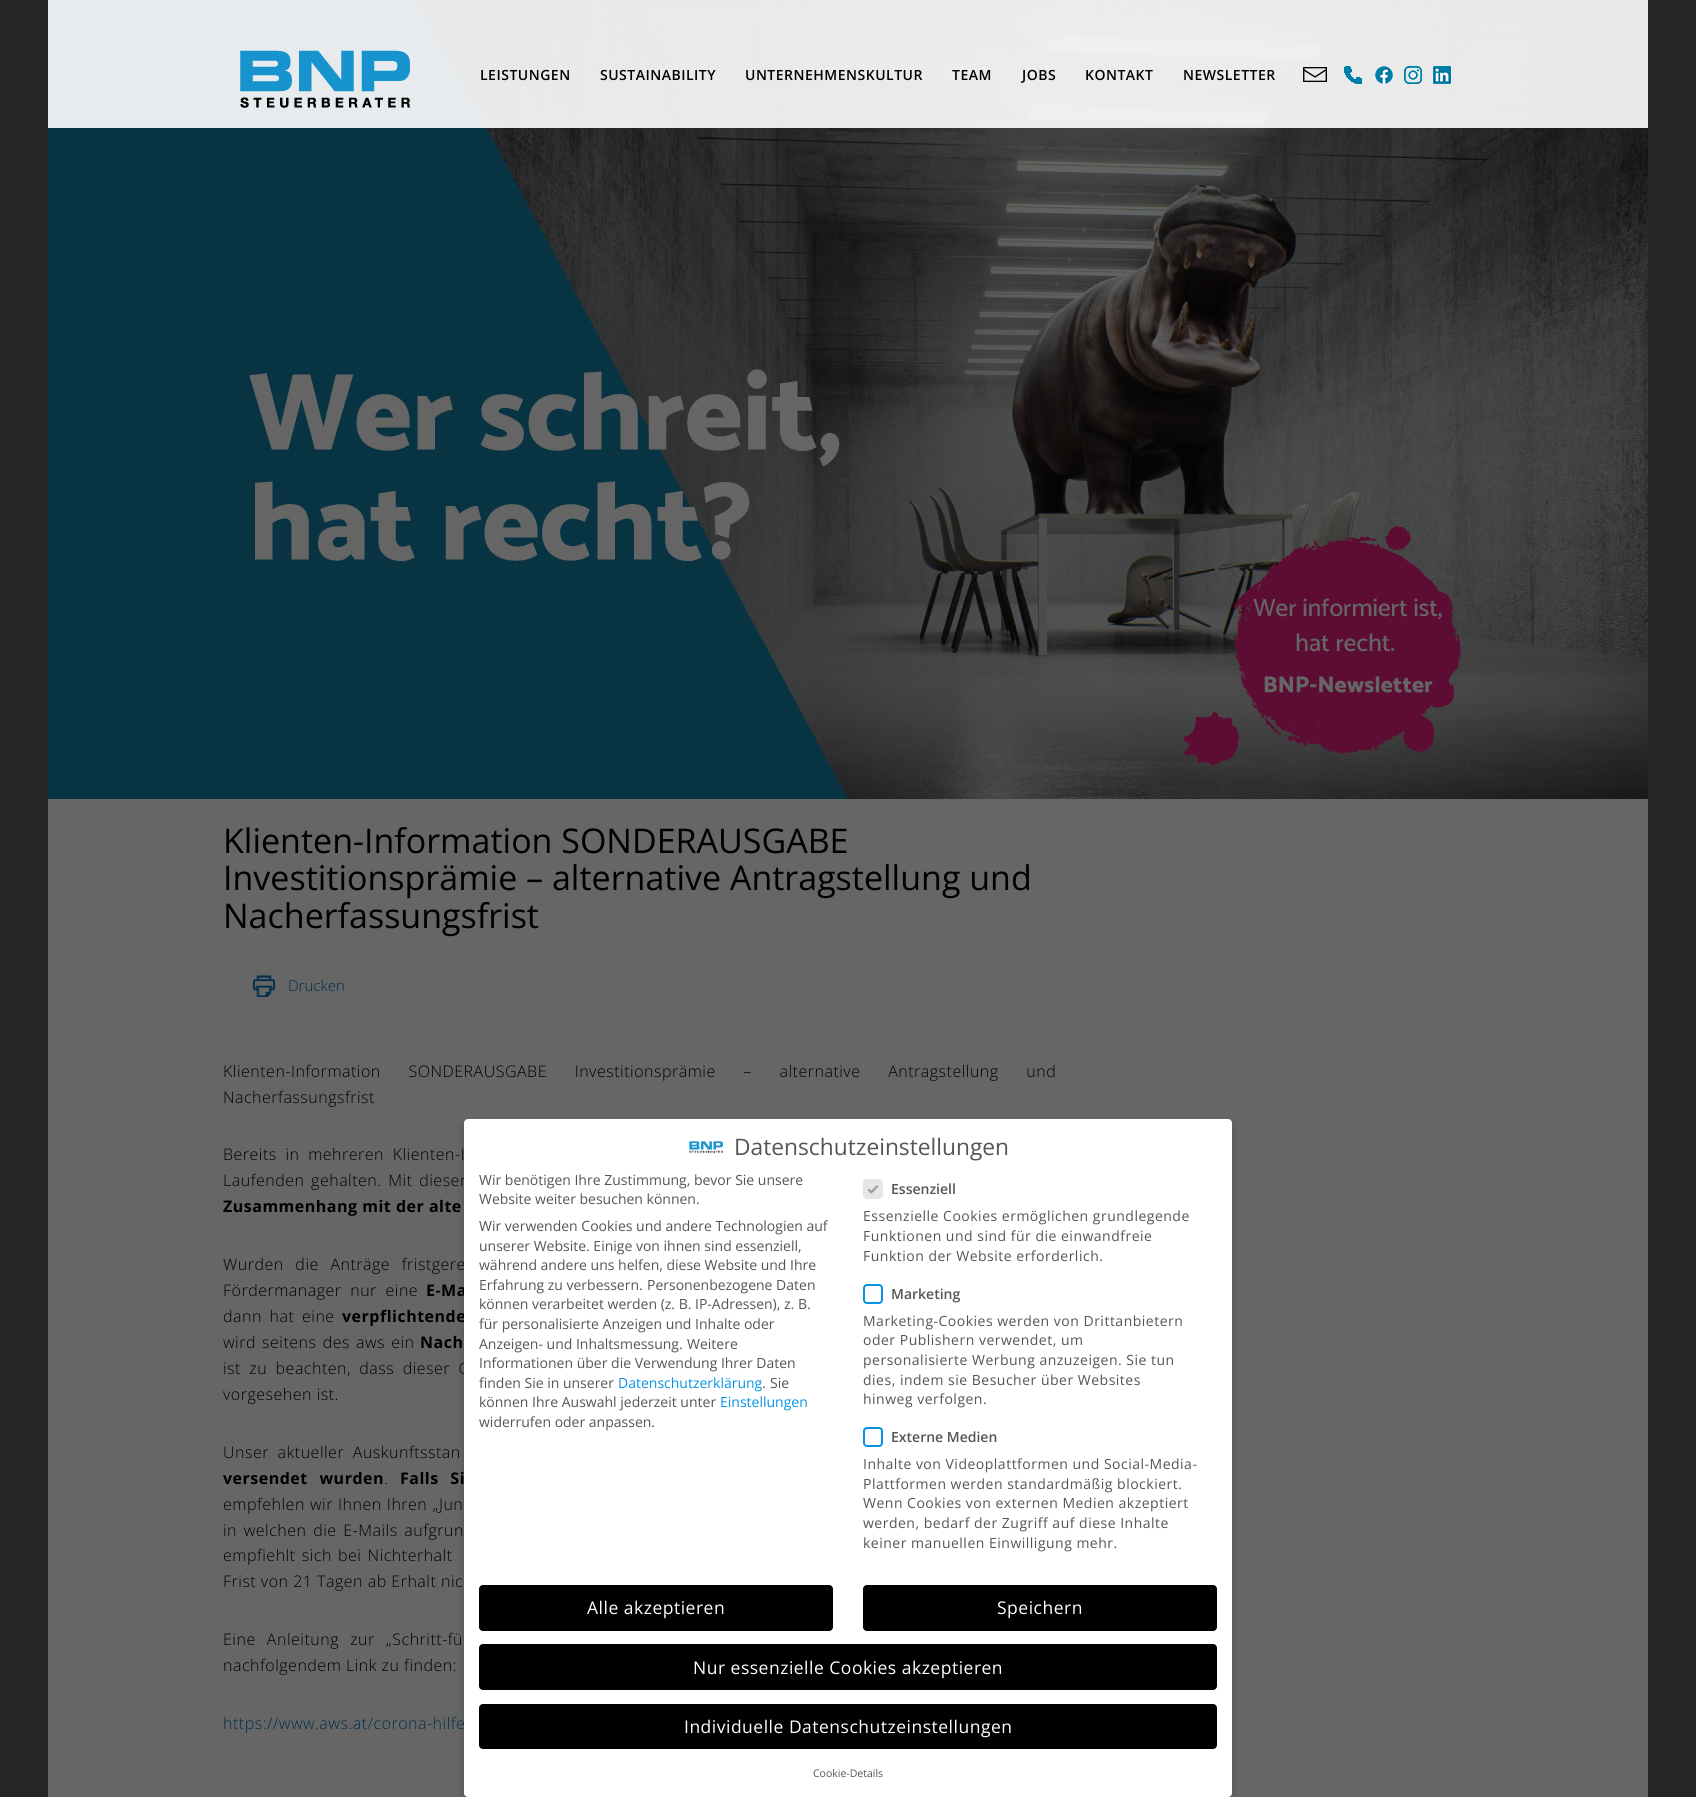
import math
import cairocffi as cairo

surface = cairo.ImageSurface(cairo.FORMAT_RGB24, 1696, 1797)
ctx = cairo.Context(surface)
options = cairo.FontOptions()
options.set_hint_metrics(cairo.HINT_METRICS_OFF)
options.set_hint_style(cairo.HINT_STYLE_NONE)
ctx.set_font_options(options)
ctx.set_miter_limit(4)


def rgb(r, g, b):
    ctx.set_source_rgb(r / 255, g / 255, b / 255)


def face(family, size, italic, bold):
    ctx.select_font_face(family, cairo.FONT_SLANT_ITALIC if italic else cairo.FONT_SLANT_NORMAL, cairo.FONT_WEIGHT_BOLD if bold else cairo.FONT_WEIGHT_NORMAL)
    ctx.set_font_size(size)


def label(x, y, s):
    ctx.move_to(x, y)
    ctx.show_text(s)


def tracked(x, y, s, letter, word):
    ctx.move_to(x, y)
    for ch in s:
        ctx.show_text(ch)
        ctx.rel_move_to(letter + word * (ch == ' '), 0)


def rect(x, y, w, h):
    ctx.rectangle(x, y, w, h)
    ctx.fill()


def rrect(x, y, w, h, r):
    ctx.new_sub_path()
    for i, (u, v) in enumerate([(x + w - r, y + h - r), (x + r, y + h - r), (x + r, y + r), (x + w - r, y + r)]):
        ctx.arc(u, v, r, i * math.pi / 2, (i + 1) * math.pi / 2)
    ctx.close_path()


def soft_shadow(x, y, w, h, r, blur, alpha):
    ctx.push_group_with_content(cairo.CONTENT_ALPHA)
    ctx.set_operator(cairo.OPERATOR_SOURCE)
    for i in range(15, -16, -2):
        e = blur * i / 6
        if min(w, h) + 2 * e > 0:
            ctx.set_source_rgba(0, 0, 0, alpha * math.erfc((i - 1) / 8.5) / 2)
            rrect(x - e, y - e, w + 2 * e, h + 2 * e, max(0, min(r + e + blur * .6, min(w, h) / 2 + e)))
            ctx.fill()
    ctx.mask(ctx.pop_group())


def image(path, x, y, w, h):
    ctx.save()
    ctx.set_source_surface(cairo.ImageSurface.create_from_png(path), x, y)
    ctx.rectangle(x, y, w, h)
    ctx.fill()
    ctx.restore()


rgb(37, 37, 37)
ctx.paint()
rgb(102, 102, 102)
rect(48, 800, 1600, 997)
image('image0.png', 48, 0, 1600, 800)
ctx.set_source_rgba(1, 1, 1, 0.9)
rect(48, 0, 1600, 128)
image('image1.png', 240, 50, 170, 58)
face('Open Sans SemiBold', 14, 0, 0)
rgb(0, 0, 0)
tracked(480, 80, 'LEISTUNGEN', 0.5, 0)
tracked(600, 80, 'SUSTAINABILITY', 0.5, 0)
tracked(745, 80, 'UNTERNEHMENSKULTUR', 0.5, 0)
tracked(952, 80, 'TEAM', 0.5, 0)
tracked(1022, 80, 'JOBS', 0.5, 0)
tracked(1085, 80, 'KONTAKT', 0.5, 0)
tracked(1183, 80, 'NEWSLETTER', 0.5, 0)
image('image2.png', 1303, 67, 24, 15)
image('image3.png', 1344, 66, 18, 18)
image('image4.png', 1375, 66, 18, 18)
image('image5.png', 1404, 66, 18, 18)
image('image6.png', 1433, 66, 18, 18)
face('Open Sans', 34, 0, 0)
label(223, 853, 'Klienten-Information SONDERAUSGABE')
label(223, 890, 'Investitionsprämie – alternative Antragstellung und')
label(223, 928, 'Nacherfassungsfrist')
image('image7.png', 253, 975, 22, 22)
face('Open Sans Light', 15, 0, 0)
rgb(0, 45, 75)
label(288, 991, 'Drucken')
face('Open Sans Light', 16, 0, 0)
rgb(0, 0, 0)
tracked(223, 1077, 'Klienten-Information SONDERAUSGABE Investitionsprämie – alternative Antragstellung und', 0.5, 23)
tracked(223, 1103, 'Nacherfassungsfrist', 0.5, 0)
tracked(223, 1160, 'Bereits in mehreren Klienten-I', 0.5, 4)
tracked(223, 1186, 'Laufenden gehalten. Mit dieser', 0.5, 2)
face('Open Sans', 16, 0, 1)
tracked(223, 1212, 'Zusammenhang mit der alte', 0.5, 0)
face('Open Sans Light', 16, 0, 0)
tracked(223, 1270, 'Wurden die Anträge fristgere', 0.5, 7)
tracked(223, 1296, 'Fördermanager nur eine', 0.5, 4)
face('Open Sans', 16, 0, 1)
tracked(426, 1296, 'E-Ma', 0.5, 0)
face('Open Sans Light', 16, 0, 0)
tracked(223, 1322, 'dann hat eine', 0.5, 3)
face('Open Sans', 16, 0, 1)
tracked(342, 1322, 'verpflichtende', 0.5, 3)
face('Open Sans Light', 16, 0, 0)
tracked(223, 1348, 'wird seitens des aws ein', 0.5, 1.5)
face('Open Sans', 16, 0, 1)
tracked(420, 1348, 'Nach', 0.5, 0)
face('Open Sans Light', 16, 0, 0)
tracked(223, 1374, 'ist zu beachten, dass dieser C', 0.5, 3.75)
tracked(223, 1400, 'vorgesehen ist.', 0.5, 0)
tracked(223, 1458, 'Unser aktueller Auskunftsstan', 0.5, 4)
face('Open Sans', 16, 0, 1)
tracked(223, 1484, 'versendet wurden', 0.5, 7)
face('Open Sans Light', 16, 0, 0)
tracked(384, 1484, '.', 0.5, 0)
face('Open Sans', 16, 0, 1)
tracked(400, 1484, 'Falls Si', 0.5, 7)
face('Open Sans Light', 16, 0, 0)
tracked(223, 1510, 'empfehlen wir Ihnen Ihren „Jun', 0.5, 0.5)
tracked(223, 1536, 'in welchen die E-Mails aufgrun', 0.5, 2)
tracked(223, 1561, 'empfiehlt sich bei Nichterhalt', 0.5, 1.5)
tracked(223, 1587, 'Frist von 21 Tagen ab Erhalt nic', 0.5, 0)
tracked(223, 1645, 'Eine Anleitung zur „Schritt-fü', 0.5, 6.5)
tracked(223, 1671, 'nachfolgendem Link zu finden:', 0.5, 0)
rgb(0, 45, 75)
tracked(223, 1729, 'https://www.aws.at/corona-hilfe', 0.5, 0)
rgb(0, 0, 0)
soft_shadow(464, 1123, 768, 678, 4, 4, 0.2)
rgb(255, 255, 255)
rrect(464, 1119, 768, 678, 4)
ctx.fill()
image('image8.png', 689, 1140, 34, 14)
face('Open Sans', 22.75, 0, 0)
rgb(85, 85, 85)
label(734, 1155, 'Datenschutzeinstellungen')
face('Open Sans', 14, 0, 0)
label(479, 1185, 'Wir benötigen Ihre Zustimmung, bevor Sie unsere')
label(479, 1204, 'Website weiter besuchen können.')
label(479, 1231, 'Wir verwenden Cookies und andere Technologien auf')
label(479, 1251, 'unserer Website. Einige von ihnen sind essenziell,')
label(479, 1270, 'während andere uns helfen, diese Website und Ihre')
label(479, 1290, 'Erfahrung zu verbessern.')
label(647, 1290, 'Personenbezogene Daten')
label(479, 1309, 'können verarbeitet werden (z. B. IP-Adressen), z. B.')
label(479, 1329, 'für personalisierte Anzeigen und Inhalte oder')
label(479, 1349, 'Anzeigen- und Inhaltsmessung.')
label(687, 1349, 'Weitere')
label(479, 1368, 'Informationen über die Verwendung Ihrer Daten')
label(479, 1388, 'finden Sie in unserer')
rgb(6, 147, 227)
label(618, 1388, 'Datenschutzerklärung')
rgb(85, 85, 85)
label(762, 1388, '.')
label(770, 1388, 'Sie')
label(479, 1407, 'können Ihre Auswahl jederzeit unter')
rgb(6, 147, 227)
label(720, 1407, 'Einstellungen')
rgb(85, 85, 85)
label(479, 1427, 'widerrufen oder anpassen.')
rgb(230, 230, 230)
rrect(864, 1180, 18, 18, 3)
ctx.fill_preserve()
ctx.stroke()
rgb(153, 153, 153)
ctx.new_path()
ctx.move_to(877, 1185)
ctx.line_to(878.5, 1186.5)
ctx.line_to(871.5, 1193.5)
ctx.line_to(870, 1192)
ctx.close_path()
ctx.fill()
ctx.new_path()
ctx.move_to(869, 1188.5)
ctx.line_to(872.5, 1192)
ctx.line_to(871, 1193.5)
ctx.line_to(867.5, 1190)
ctx.close_path()
ctx.fill()
face('Open Sans SemiBold', 14, 0, 0)
rgb(85, 85, 85)
label(891, 1194, 'Essenziell')
face('Open Sans', 14, 0, 0)
tracked(863, 1221, 'Essenzielle Cookies ermöglichen grundlegende', 0.5, 0)
tracked(863, 1241, 'Funktionen und sind für die einwandfreie', 0.5, 0)
tracked(863, 1261, 'Funktion der Website erforderlich.', 0.5, 0)
rrect(864, 1285, 18, 18, 3)
rgb(6, 147, 227)
ctx.stroke()
face('Open Sans SemiBold', 14, 0, 0)
rgb(85, 85, 85)
label(891, 1299, 'Marketing')
face('Open Sans', 14, 0, 0)
tracked(863, 1326, 'Marketing-Cookies werden von Drittanbietern', 0.5, 0)
tracked(863, 1345, 'oder Publishern verwendet, um', 0.5, 0)
tracked(863, 1365, 'personalisierte Werbung anzuzeigen. Sie tun', 0.5, 0)
tracked(863, 1385, 'dies, indem sie Besucher über Websites', 0.5, 0)
tracked(863, 1404, 'hinweg verfolgen.', 0.5, 0)
rrect(864, 1428, 18, 18, 3)
rgb(6, 147, 227)
ctx.stroke()
face('Open Sans SemiBold', 14, 0, 0)
rgb(85, 85, 85)
label(891, 1442, 'Externe Medien')
face('Open Sans', 14, 0, 0)
tracked(863, 1469, 'Inhalte von Videoplattformen und Social-Media-', 0.5, 0)
tracked(863, 1489, 'Plattformen werden standardmäßig blockiert.', 0.5, 0)
tracked(863, 1508, 'Wenn Cookies von externen Medien akzeptiert', 0.5, 0)
tracked(863, 1528, 'werden, bedarf der Zugriff auf diese Inhalte', 0.5, 0)
tracked(863, 1548, 'keiner manuellen Einwilligung mehr.', 0.5, 0)
rgb(0, 0, 0)
rrect(479, 1585, 354, 46, 4)
ctx.fill()
face('Open Sans', 17.5, 0, 0)
rgb(255, 255, 255)
tracked(587, 1614, 'Alle akzeptieren', 0.5, 0)
rgb(0, 0, 0)
rrect(863, 1585, 354, 46, 4)
ctx.fill()
rgb(255, 255, 255)
tracked(997, 1614, 'Speichern', 0.5, 0)
rgb(0, 0, 0)
rrect(479, 1644, 738, 46, 4)
ctx.fill()
rgb(255, 255, 255)
tracked(693, 1674, 'Nur essenzielle Cookies akzeptieren', 0.5, 0)
rgb(0, 0, 0)
rrect(479, 1704, 738, 45, 4)
ctx.fill()
rgb(255, 255, 255)
tracked(684, 1733, 'Individuelle Datenschutzeinstellungen', 0.5, 0)
face('Open Sans', 10.5, 0, 0)
rgb(85, 85, 85)
label(813, 1777, 'Cookie-Details')
surface.write_to_png('render.png')
